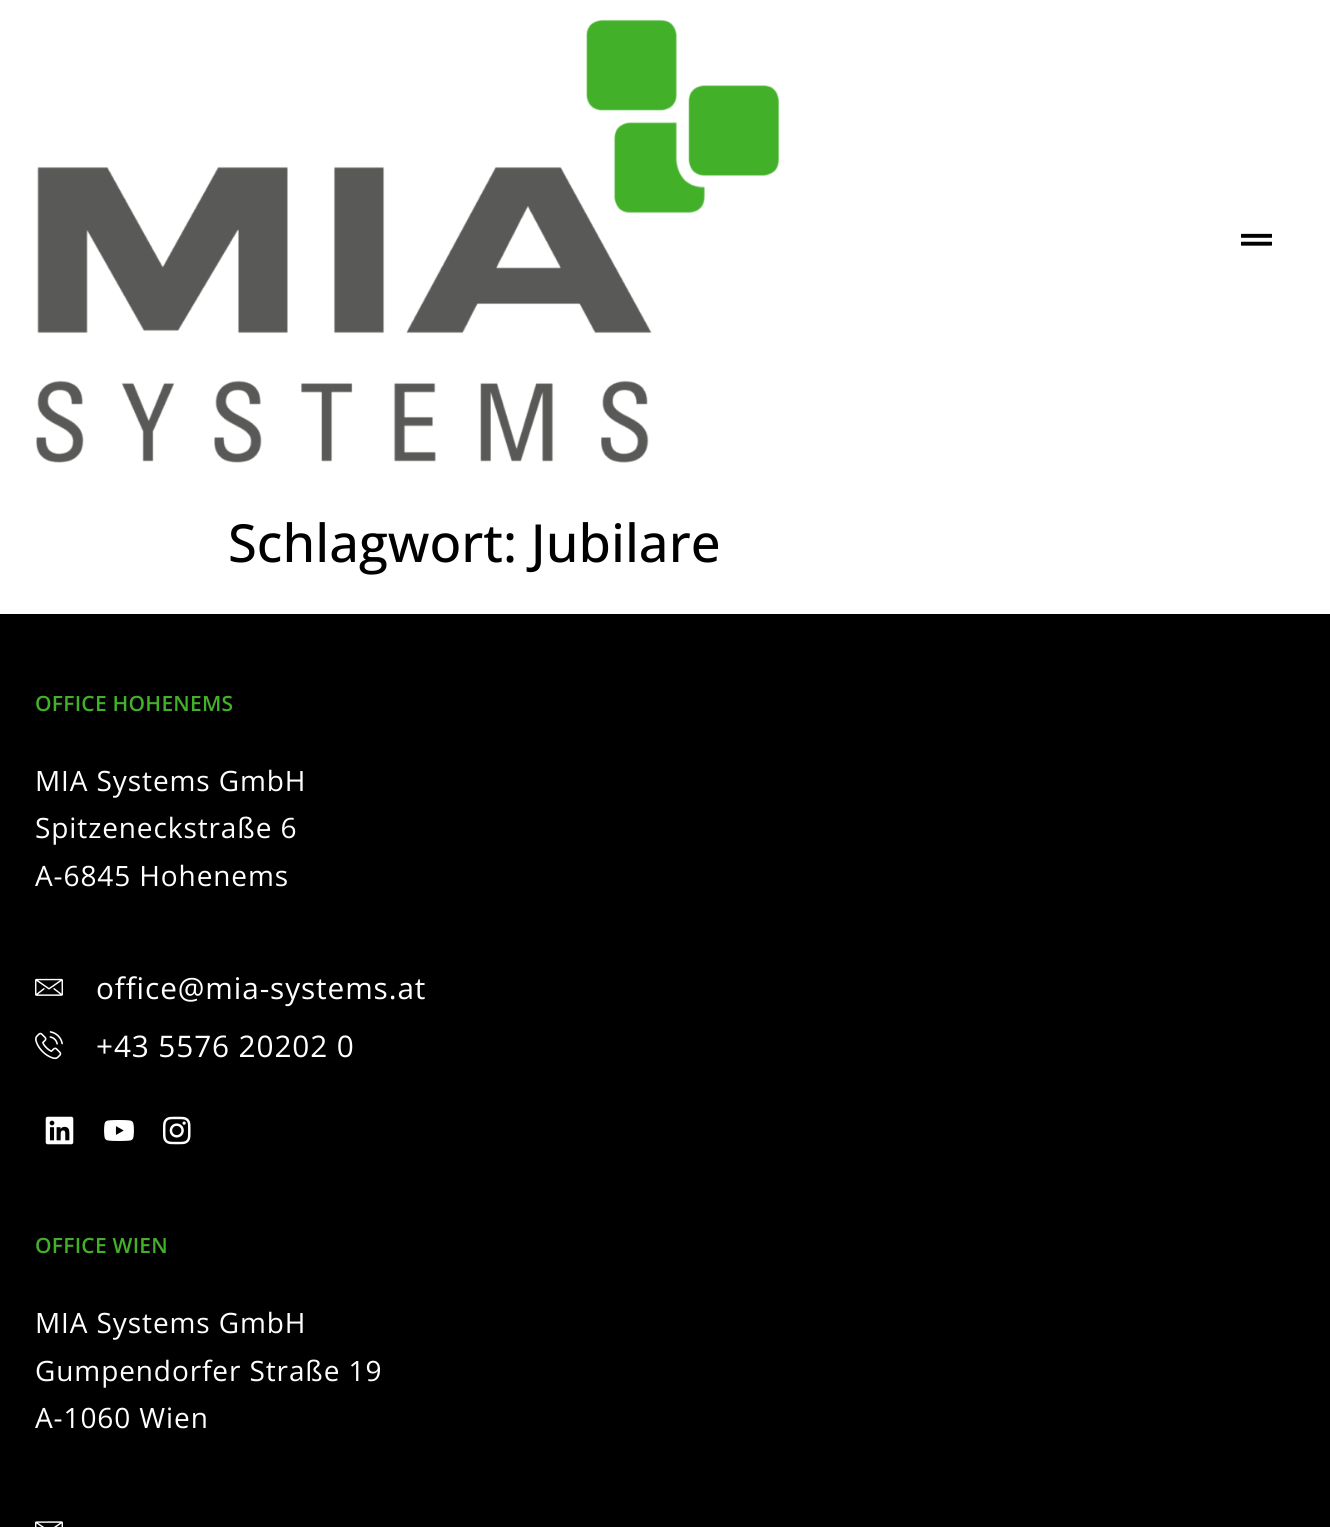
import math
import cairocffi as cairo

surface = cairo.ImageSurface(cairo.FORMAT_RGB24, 1330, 1527)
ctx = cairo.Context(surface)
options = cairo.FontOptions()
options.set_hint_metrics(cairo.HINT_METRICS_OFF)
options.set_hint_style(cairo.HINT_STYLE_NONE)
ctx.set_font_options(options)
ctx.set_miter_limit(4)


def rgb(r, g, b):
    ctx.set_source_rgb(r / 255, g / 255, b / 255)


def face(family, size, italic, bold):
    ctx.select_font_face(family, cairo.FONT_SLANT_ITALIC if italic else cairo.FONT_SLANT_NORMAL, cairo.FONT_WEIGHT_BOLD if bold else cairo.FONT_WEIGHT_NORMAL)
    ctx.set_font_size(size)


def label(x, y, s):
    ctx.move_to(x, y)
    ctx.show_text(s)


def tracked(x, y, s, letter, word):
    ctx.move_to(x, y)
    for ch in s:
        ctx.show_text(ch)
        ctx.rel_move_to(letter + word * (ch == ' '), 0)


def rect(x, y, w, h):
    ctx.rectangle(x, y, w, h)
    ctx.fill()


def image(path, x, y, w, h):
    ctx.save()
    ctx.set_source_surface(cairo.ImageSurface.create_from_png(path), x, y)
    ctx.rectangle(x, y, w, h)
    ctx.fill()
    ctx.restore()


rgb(255, 255, 255)
ctx.paint()
image('image0.png', 36, 19, 744, 444)
image('image1.png', 1241, 233, 31, 13)
face('Open Sans Medium', 52.5, 0, 0)
rgb(0, 0, 0)
label(228, 562, 'Schlagwort: Jubilare')
rect(0, 614, 1330, 913)
face('Open Sans SemiBold', 21, 0, 0)
rgb(67, 176, 42)
tracked(35, 711, 'OFFICE HOHENEMS', 0.25, 0)
face('Open Sans', 28, 0, 0)
rgb(255, 255, 255)
tracked(35, 791, 'MIA Systems GmbH', 0.9, 0)
tracked(35, 838, 'Spitzeneckstraße 6', 0.9, 0)
tracked(35, 886, 'A-6845 Hohenems', 0.9, 0)
image('image2.png', 35, 978, 28, 18)
face('Open Sans', 29.75, 0, 0)
tracked(96, 999, 'office@mia-systems.at', 0.9, 0)
image('image3.png', 35, 1031, 28, 29)
tracked(96, 1057, '+43 5576 20202 0', 0.9, 0)
image('image4.png', 45, 1116, 29, 29)
image('image5.png', 104, 1120, 30, 21)
image('image6.png', 162, 1116, 29, 29)
face('Open Sans SemiBold', 21, 0, 0)
rgb(67, 176, 42)
tracked(35, 1253, 'OFFICE WIEN', 0.25, 0)
face('Open Sans', 28, 0, 0)
rgb(255, 255, 255)
tracked(35, 1333, 'MIA Systems GmbH', 0.9, 0)
tracked(35, 1381, 'Gumpendorfer Straße 19', 0.9, 0)
tracked(35, 1428, 'A-1060 Wien', 0.9, 0)
image('image7.png', 35, 1521, 28, 6)
surface.write_to_png('render.png')
